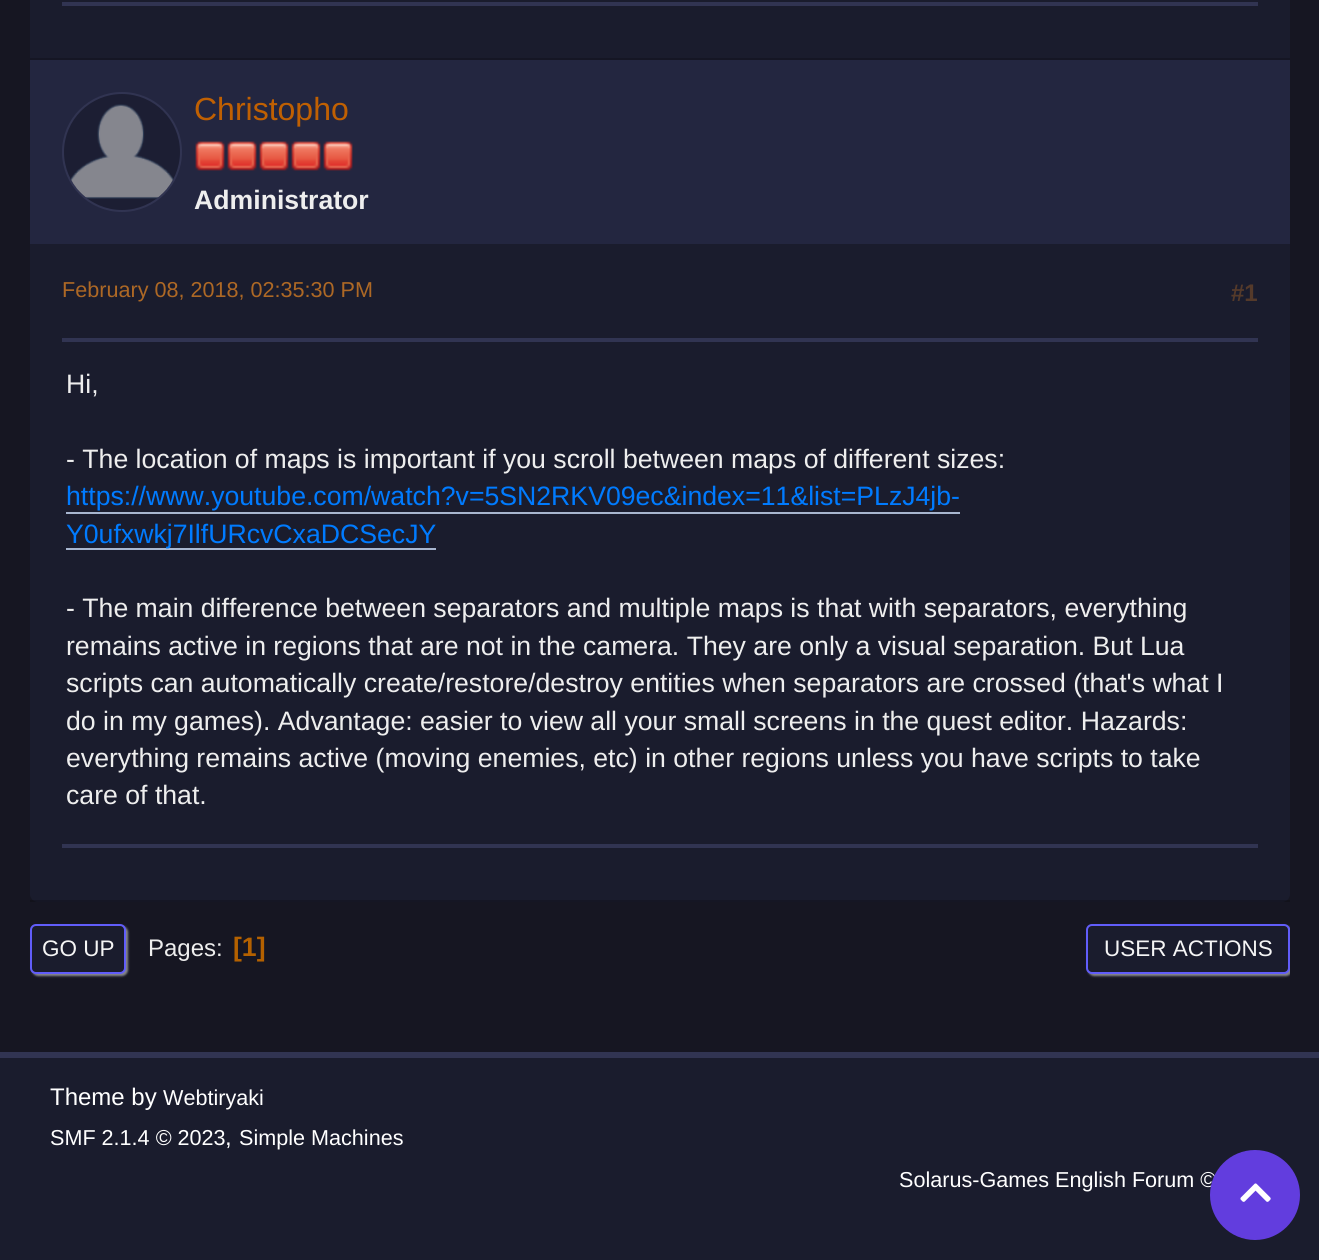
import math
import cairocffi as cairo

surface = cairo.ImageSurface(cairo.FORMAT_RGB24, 1319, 1260)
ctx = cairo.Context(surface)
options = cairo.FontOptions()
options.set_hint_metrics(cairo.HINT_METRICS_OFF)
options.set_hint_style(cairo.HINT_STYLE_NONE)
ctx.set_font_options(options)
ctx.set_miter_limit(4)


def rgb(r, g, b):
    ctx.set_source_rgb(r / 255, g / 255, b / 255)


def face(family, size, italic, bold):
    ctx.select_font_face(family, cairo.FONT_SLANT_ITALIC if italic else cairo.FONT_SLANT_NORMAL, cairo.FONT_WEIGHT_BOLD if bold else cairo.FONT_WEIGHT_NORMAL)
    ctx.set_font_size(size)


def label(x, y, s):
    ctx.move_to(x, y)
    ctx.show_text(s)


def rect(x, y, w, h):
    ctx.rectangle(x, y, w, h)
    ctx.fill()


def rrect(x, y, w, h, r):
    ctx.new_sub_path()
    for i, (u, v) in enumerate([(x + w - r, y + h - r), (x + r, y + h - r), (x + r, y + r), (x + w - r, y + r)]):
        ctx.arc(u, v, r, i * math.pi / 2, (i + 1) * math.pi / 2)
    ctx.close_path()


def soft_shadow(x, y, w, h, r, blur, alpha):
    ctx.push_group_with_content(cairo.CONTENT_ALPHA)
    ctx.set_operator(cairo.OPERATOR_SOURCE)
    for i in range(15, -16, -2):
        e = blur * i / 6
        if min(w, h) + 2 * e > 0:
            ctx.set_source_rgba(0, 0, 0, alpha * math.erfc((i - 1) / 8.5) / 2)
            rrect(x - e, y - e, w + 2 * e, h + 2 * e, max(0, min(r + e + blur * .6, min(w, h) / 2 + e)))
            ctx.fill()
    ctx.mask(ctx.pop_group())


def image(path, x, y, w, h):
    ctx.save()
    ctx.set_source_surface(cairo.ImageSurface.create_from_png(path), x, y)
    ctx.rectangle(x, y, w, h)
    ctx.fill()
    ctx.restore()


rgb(22, 22, 34)
ctx.paint()
rgb(26, 28, 45)
rrect(30, -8, 1260, 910, 8)
ctx.fill()
rgb(21, 22, 36)
rect(30, 58, 1260, 2)
rgb(49, 52, 82)
rect(62, 2, 1196, 4)
ctx.set_source_rgba(0, 0, 0, 0.2)
rect(30, 900, 1260, 2)
rgb(35, 38, 64)
rect(30, 60, 1260, 184)
rgb(28, 30, 51)
ctx.arc(122, 152, 59, 0, 2 * math.pi)
ctx.fill_preserve()
rgb(49, 52, 82)
ctx.stroke()
image('image0.png', 71, 104, 103, 95)
face('Liberation Sans', 32, 0, 0)
rgb(192, 96, 2)
label(194, 120, 'Christopho')
image('image1.png', 195, 141, 30, 30)
image('image1.png', 227, 141, 30, 30)
image('image1.png', 259, 141, 30, 30)
image('image1.png', 291, 141, 30, 30)
image('image1.png', 323, 141, 30, 30)
face('Liberation Sans', 26.65, 0, 1)
rgb(238, 238, 238)
label(194, 209, 'Administrator')
face('Liberation Sans', 21.6, 0, 0)
rgb(173, 104, 37)
label(62, 297, 'February 08, 2018, 02:35:30 PM')
face('Liberation Sans', 24, 0, 1)
rgb(85, 58, 42)
label(1231, 301, '#1')
rgb(49, 52, 82)
rect(62, 338, 1196, 4)
face('Liberation Sans', 26.65, 0, 0)
rgb(238, 238, 238)
label(66, 393, 'Hi,')
label(66, 468, '- The location of maps is important if you scroll between maps of different sizes:')
rgb(0, 123, 255)
label(66, 505, 'https://www.youtube.com/watch?v=5SN2RKV09ec&index=11&list=PLzJ4jb-')
rgb(168, 182, 207)
rect(66, 512, 894, 2)
rect(66, 548, 370, 2)
rgb(0, 123, 255)
label(66, 543, 'Y0ufxwkj7IlfURcvCxaDCSecJY')
rgb(238, 238, 238)
label(66, 617, '- The main difference between separators and multiple maps is that with separators, everything')
label(66, 655, 'remains active in regions that are not in the camera. They are only a visual separation. But Lua')
label(66, 692, 'scripts can automatically create/restore/destroy entities when separators are crossed (that\'s what I')
label(66, 730, 'do in my games). Advantage: easier to view all your small screens in the quest editor. Hazards:')
label(66, 767, 'everything remains active (moving enemies, etc) in other regions unless you have scripts to take')
label(66, 804, 'care of that.')
rgb(49, 52, 82)
rect(62, 844, 1196, 4)
rgb(221, 221, 221)
soft_shadow(32, 926, 96, 50, 6, 1, 0.57)
rgb(26, 28, 45)
rrect(31, 925, 94, 48, 5)
ctx.fill_preserve()
rgb(97, 93, 250)
ctx.stroke()
face('Liberation Sans', 22.5, 0, 0)
rgb(245, 245, 245)
label(42, 956, 'GO UP')
face('Liberation Sans', 24, 0, 0)
rgb(238, 238, 238)
label(148, 956, 'Pages:')
face('Liberation Sans', 26.65, 0, 1)
rgb(180, 97, 0)
label(233, 956, '[1]')
ctx.save()
ctx.rectangle(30, 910, 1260, 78)
ctx.clip()
rgb(221, 221, 221)
soft_shadow(1088, 926, 204, 50, 6, 1, 0.57)
ctx.restore()
rgb(26, 28, 45)
rrect(1087, 925, 202, 48, 5)
ctx.fill_preserve()
rgb(97, 93, 250)
ctx.stroke()
face('Liberation Sans', 22.5, 0, 0)
rgb(245, 245, 245)
label(1104, 956, 'USER ACTIONS')
rgb(26, 28, 45)
rect(0, 1058, 1319, 202)
rgb(49, 52, 82)
rect(0, 1052, 1319, 6)
face('Liberation Sans', 24, 0, 0)
rgb(255, 255, 255)
label(50, 1105, 'Theme by')
face('Liberation Sans', 21.6, 0, 0)
label(163, 1105, 'Webtiryaki')
label(50, 1145, 'SMF 2.1.4 © 2023')
face('Liberation Sans', 24, 0, 0)
label(225, 1145, ',')
face('Liberation Sans', 21.6, 0, 0)
label(239, 1145, 'Simple Machines')
label(899, 1187, 'Solarus-Games English Forum ©')
rgb(98, 61, 222)
ctx.new_path()
ctx.arc(1255, 1195, 45, 0, 2 * math.pi)
ctx.fill()
image('image2.png', 1240, 1183, 31, 19)
surface.write_to_png('render.png')
